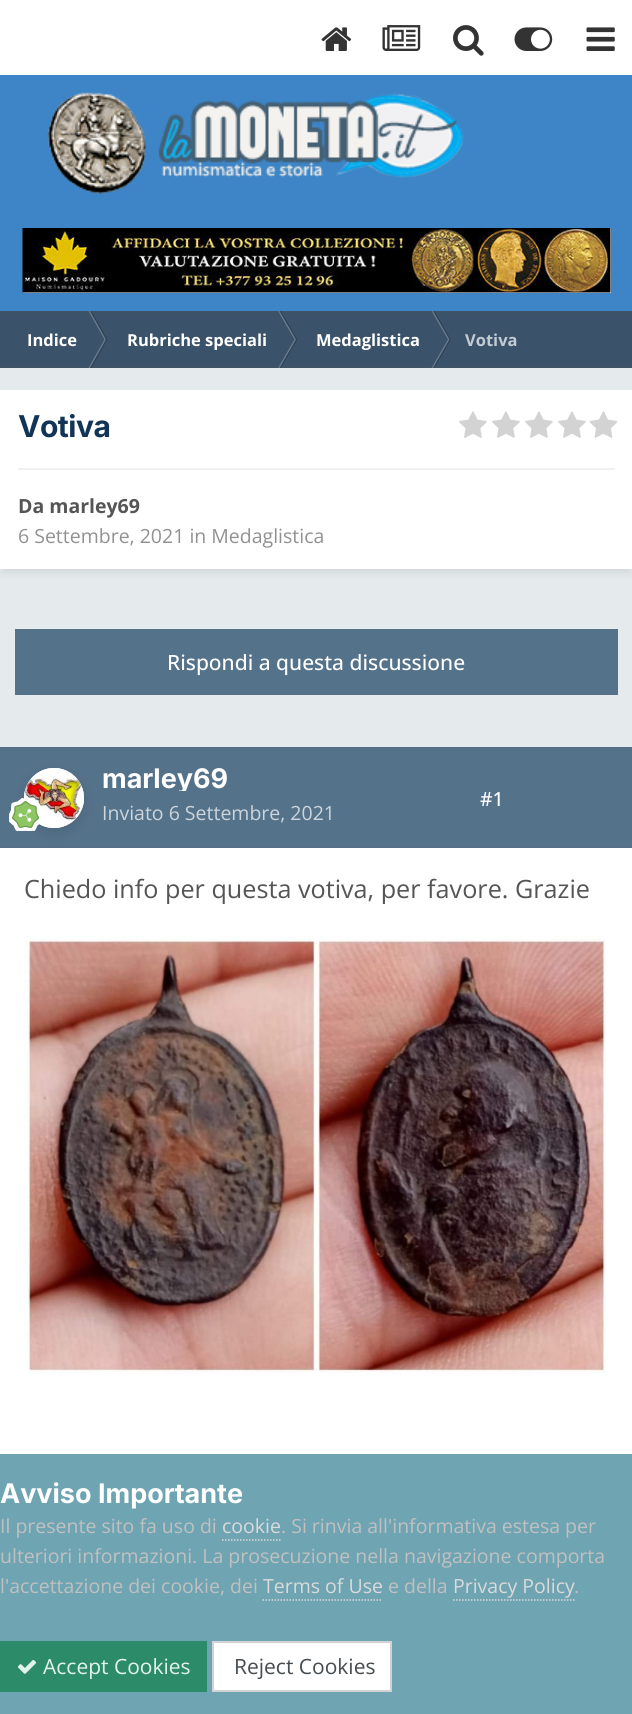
import math
import cairocffi as cairo

surface = cairo.ImageSurface(cairo.FORMAT_RGB24, 632, 1714)
ctx = cairo.Context(surface)
options = cairo.FontOptions()
options.set_hint_metrics(cairo.HINT_METRICS_OFF)
options.set_hint_style(cairo.HINT_STYLE_NONE)
ctx.set_font_options(options)
ctx.set_miter_limit(4)


def rgb(r, g, b):
    ctx.set_source_rgb(r / 255, g / 255, b / 255)


def face(family, size, italic, bold):
    ctx.select_font_face(family, cairo.FONT_SLANT_ITALIC if italic else cairo.FONT_SLANT_NORMAL, cairo.FONT_WEIGHT_BOLD if bold else cairo.FONT_WEIGHT_NORMAL)
    ctx.set_font_size(size)


def label(x, y, s):
    ctx.move_to(x, y)
    ctx.show_text(s)


def tracked(x, y, s, letter, word):
    ctx.move_to(x, y)
    for ch in s:
        ctx.show_text(ch)
        ctx.rel_move_to(letter + word * (ch == ' '), 0)


def rect(x, y, w, h):
    ctx.rectangle(x, y, w, h)
    ctx.fill()


def rrect(x, y, w, h, r):
    ctx.new_sub_path()
    for i, (u, v) in enumerate([(x + w - r, y + h - r), (x + r, y + h - r), (x + r, y + r), (x + w - r, y + r)]):
        ctx.arc(u, v, r, i * math.pi / 2, (i + 1) * math.pi / 2)
    ctx.close_path()


def soft_shadow(x, y, w, h, r, blur, alpha):
    ctx.push_group_with_content(cairo.CONTENT_ALPHA)
    ctx.set_operator(cairo.OPERATOR_SOURCE)
    for i in range(15, -16, -2):
        e = blur * i / 6
        if min(w, h) + 2 * e > 0:
            ctx.set_source_rgba(0, 0, 0, alpha * math.erfc((i - 1) / 8.5) / 2)
            rrect(x - e, y - e, w + 2 * e, h + 2 * e, max(0, min(r + e + blur * .6, min(w, h) / 2 + e)))
            ctx.fill()
    ctx.mask(ctx.pop_group())


def image(path, x, y, w, h):
    ctx.save()
    ctx.set_source_surface(cairo.ImageSurface.create_from_png(path), x, y)
    ctx.rectangle(x, y, w, h)
    ctx.fill()
    ctx.restore()


rgb(229, 234, 237)
ctx.paint()
rgb(255, 255, 255)
rect(0, 0, 632, 75)
image('image0.png', 321, 27, 31, 24)
image('image1.png', 382, 25, 39, 26)
image('image2.png', 453, 25, 31, 31)
image('image3.png', 514, 27, 39, 24)
image('image4.png', 586, 27, 29, 24)
rgb(61, 133, 198)
rect(0, 75, 632, 236)
image('image5.png', 47, 92, 417, 102)
rgb(250, 250, 250)
rect(23, 228, 588, 65)
image('image6.png', 22, 228, 589, 65)
rgb(58, 83, 107)
rect(0, 311, 632, 57)
rgb(107, 126, 144)
ctx.new_path()
ctx.move_to(88.5, 311)
ctx.line_to(90, 311)
ctx.line_to(106, 339.5)
ctx.line_to(104.5, 339.5)
ctx.close_path()
ctx.fill()
ctx.set_source_rgba(0, 0, 0, 0.2)
ctx.new_path()
ctx.move_to(90, 311)
ctx.line_to(91.5, 311)
ctx.line_to(107.5, 339.5)
ctx.line_to(106, 339.5)
ctx.close_path()
ctx.fill()
rgb(107, 126, 144)
ctx.new_path()
ctx.move_to(278, 311)
ctx.line_to(279.5, 311)
ctx.line_to(296, 339.5)
ctx.line_to(294.5, 339.5)
ctx.close_path()
ctx.fill()
ctx.set_source_rgba(0, 0, 0, 0.2)
ctx.new_path()
ctx.move_to(279.5, 311)
ctx.line_to(281, 311)
ctx.line_to(297.5, 339.5)
ctx.line_to(296, 339.5)
ctx.close_path()
ctx.fill()
rgb(107, 126, 144)
ctx.new_path()
ctx.move_to(431.5, 311)
ctx.line_to(433, 311)
ctx.line_to(449.5, 339.5)
ctx.line_to(448, 339.5)
ctx.close_path()
ctx.fill()
ctx.set_source_rgba(0, 0, 0, 0.2)
ctx.new_path()
ctx.move_to(433, 311)
ctx.line_to(434.5, 311)
ctx.line_to(451, 339.5)
ctx.line_to(449.5, 339.5)
ctx.close_path()
ctx.fill()
ctx.set_source_rgba(0.333, 0.333, 0.333, 0.2)
rect(0, 311, 632, 2)
rgb(107, 126, 144)
ctx.new_path()
ctx.move_to(88.5, 368)
ctx.line_to(90, 368)
ctx.line_to(106, 339.5)
ctx.line_to(104.5, 339.5)
ctx.close_path()
ctx.fill()
ctx.set_source_rgba(0, 0, 0, 0.2)
ctx.new_path()
ctx.move_to(90, 368)
ctx.line_to(91.5, 368)
ctx.line_to(107.5, 339.5)
ctx.line_to(106, 339.5)
ctx.close_path()
ctx.fill()
rgb(107, 126, 144)
ctx.new_path()
ctx.move_to(278, 368)
ctx.line_to(279.5, 368)
ctx.line_to(296, 339.5)
ctx.line_to(294.5, 339.5)
ctx.close_path()
ctx.fill()
ctx.set_source_rgba(0, 0, 0, 0.2)
ctx.new_path()
ctx.move_to(279.5, 368)
ctx.line_to(281, 368)
ctx.line_to(297.5, 339.5)
ctx.line_to(296, 339.5)
ctx.close_path()
ctx.fill()
rgb(107, 126, 144)
ctx.new_path()
ctx.move_to(431.5, 368)
ctx.line_to(433, 368)
ctx.line_to(449.5, 339.5)
ctx.line_to(448, 339.5)
ctx.close_path()
ctx.fill()
ctx.set_source_rgba(0, 0, 0, 0.2)
ctx.new_path()
ctx.move_to(433, 368)
ctx.line_to(434.5, 368)
ctx.line_to(451, 339.5)
ctx.line_to(449.5, 339.5)
ctx.close_path()
ctx.fill()
ctx.set_source_rgba(0.333, 0.333, 0.333, 0.2)
rect(0, 366, 632, 2)
face('Open Sans', 16.5, 0, 1)
rgb(255, 255, 255)
label(27, 346, 'Indice')
label(127, 346, 'Rubriche speciali')
label(316, 346, 'Medaglistica')
rgb(196, 203, 211)
label(465, 346, 'Votiva')
rgb(0, 0, 0)
soft_shadow(3, 399, 627, 173, 0, 4.5, 0.1)
rgb(255, 255, 255)
rect(0, 390, 632, 179)
face('Inter', 30, 0, 1)
rgb(18, 52, 86)
tracked(18, 437, 'Votiva', -0.5, 0)
image('image7.png', 459, 411, 28, 27)
image('image7.png', 492, 411, 28, 27)
image('image7.png', 525, 411, 28, 27)
image('image7.png', 558, 411, 28, 27)
image('image8.png', 589, 411, 29, 27)
rgb(241, 241, 241)
rect(18, 468, 597, 2)
face('Open Sans', 19.5, 0, 1)
rgb(85, 85, 85)
label(18, 513, 'Da marley69')
face('Open Sans', 19.5, 0, 0)
rgb(145, 145, 145)
label(18, 543, '6 Settembre, 2021 in Medaglistica')
rgb(85, 114, 139)
rect(15, 629, 603, 66)
face('Open Sans Medium', 21, 0, 0)
rgb(255, 255, 255)
label(167, 670, 'Rispondi a questa discussione')
rect(0, 848, 632, 606)
rgb(85, 114, 139)
rect(0, 749, 632, 97)
rgb(85, 111, 134)
rect(0, 747, 632, 2)
rect(0, 846, 632, 2)
rgb(255, 255, 255)
ctx.new_path()
ctx.arc(54, 798, 30, 0, 2 * math.pi)
ctx.fill()
image('image9.png', 24, 768, 60, 60)
ctx.save()
ctx.set_fill_rule(cairo.FILL_RULE_EVEN_ODD)
ctx.new_path()
ctx.move_to(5, 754)
ctx.line_to(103, 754)
ctx.line_to(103, 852)
ctx.line_to(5, 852)
ctx.close_path()
ctx.move_to(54, 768)
ctx.curve_to(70.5, 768, 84, 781.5, 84, 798)
ctx.curve_to(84, 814.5, 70.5, 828, 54, 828)
ctx.curve_to(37.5, 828, 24, 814.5, 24, 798)
ctx.curve_to(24, 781.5, 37.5, 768, 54, 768)
ctx.close_path()
ctx.clip()
rgb(0, 0, 0)
soft_shadow(24, 773, 60, 60, 30, 6, 0.1)
ctx.restore()
ctx.arc(54, 798, 29, 0, 2 * math.pi)
ctx.set_source_rgba(1, 1, 1, 0.3)
ctx.stroke()
image('image10.png', 9, 798, 31, 33)
ctx.save()
ctx.rectangle(102, 767, 126, 24)
ctx.clip()
face('Inter', 27, 0, 1)
rgb(255, 255, 255)
label(102, 788, 'marley69')
ctx.restore()
face('Open Sans', 19.5, 0, 0)
rgb(204, 213, 220)
label(102, 820, 'Inviato 6 Settembre, 2021')
face('Open Sans Medium', 19.5, 0, 0)
rgb(255, 255, 255)
label(480, 806, '#1')
face('Open Sans', 25.2, 0, 0)
rgb(85, 85, 85)
label(24, 898, 'Chiedo info per questa votiva, per favore. Grazie')
image('image11.png', 24, 936, 582, 438)
rgb(111, 164, 179)
rect(0, 1454, 632, 260)
face('Inter', 27, 0, 1)
rgb(255, 255, 255)
label(0, 1503, 'Avviso Importante')
face('Open Sans', 19.5, 0, 0)
rgb(192, 192, 192)
label(0, 1533, 'Il presente sito fa uso di')
rgb(218, 218, 218)
label(222, 1533, 'cookie')
ctx.new_path()
ctx.move_to(222, 1540)
ctx.line_to(280.5, 1540)
ctx.set_line_width(1.5)
ctx.set_dash([1.5, 1.5])
ctx.stroke()
rgb(192, 192, 192)
label(281, 1533, '. Si rinvia all\'informativa estesa per')
label(0, 1563, 'ulteriori informazioni. La prosecuzione nella navigazione comporta')
label(0, 1593, 'l\'accettazione dei cookie, dei')
rgb(218, 218, 218)
label(263, 1593, 'Terms of Use')
ctx.new_path()
ctx.move_to(262.5, 1600)
ctx.line_to(382.5, 1600)
ctx.stroke()
rgb(192, 192, 192)
label(388, 1593, 'e della')
rgb(218, 218, 218)
label(453, 1593, 'Privacy Policy')
ctx.new_path()
ctx.move_to(453, 1600)
ctx.line_to(574.5, 1600)
ctx.stroke()
rgb(192, 192, 192)
label(574, 1593, '.')
rgb(44, 140, 105)
rect(0, 1641, 207, 51)
image('image12.png', 17, 1659, 20, 15)
face('Open Sans', 21, 0, 0)
rgb(227, 243, 236)
label(43, 1674, 'Accept Cookies')
rgb(255, 255, 255)
ctx.rectangle(213, 1642, 178, 49)
ctx.fill_preserve()
rgb(209, 210, 211)
ctx.set_line_width(2)
ctx.set_dash([])
ctx.stroke()
rgb(70, 76, 80)
label(234, 1674, 'Reject Cookies')
surface.write_to_png('render.png')
